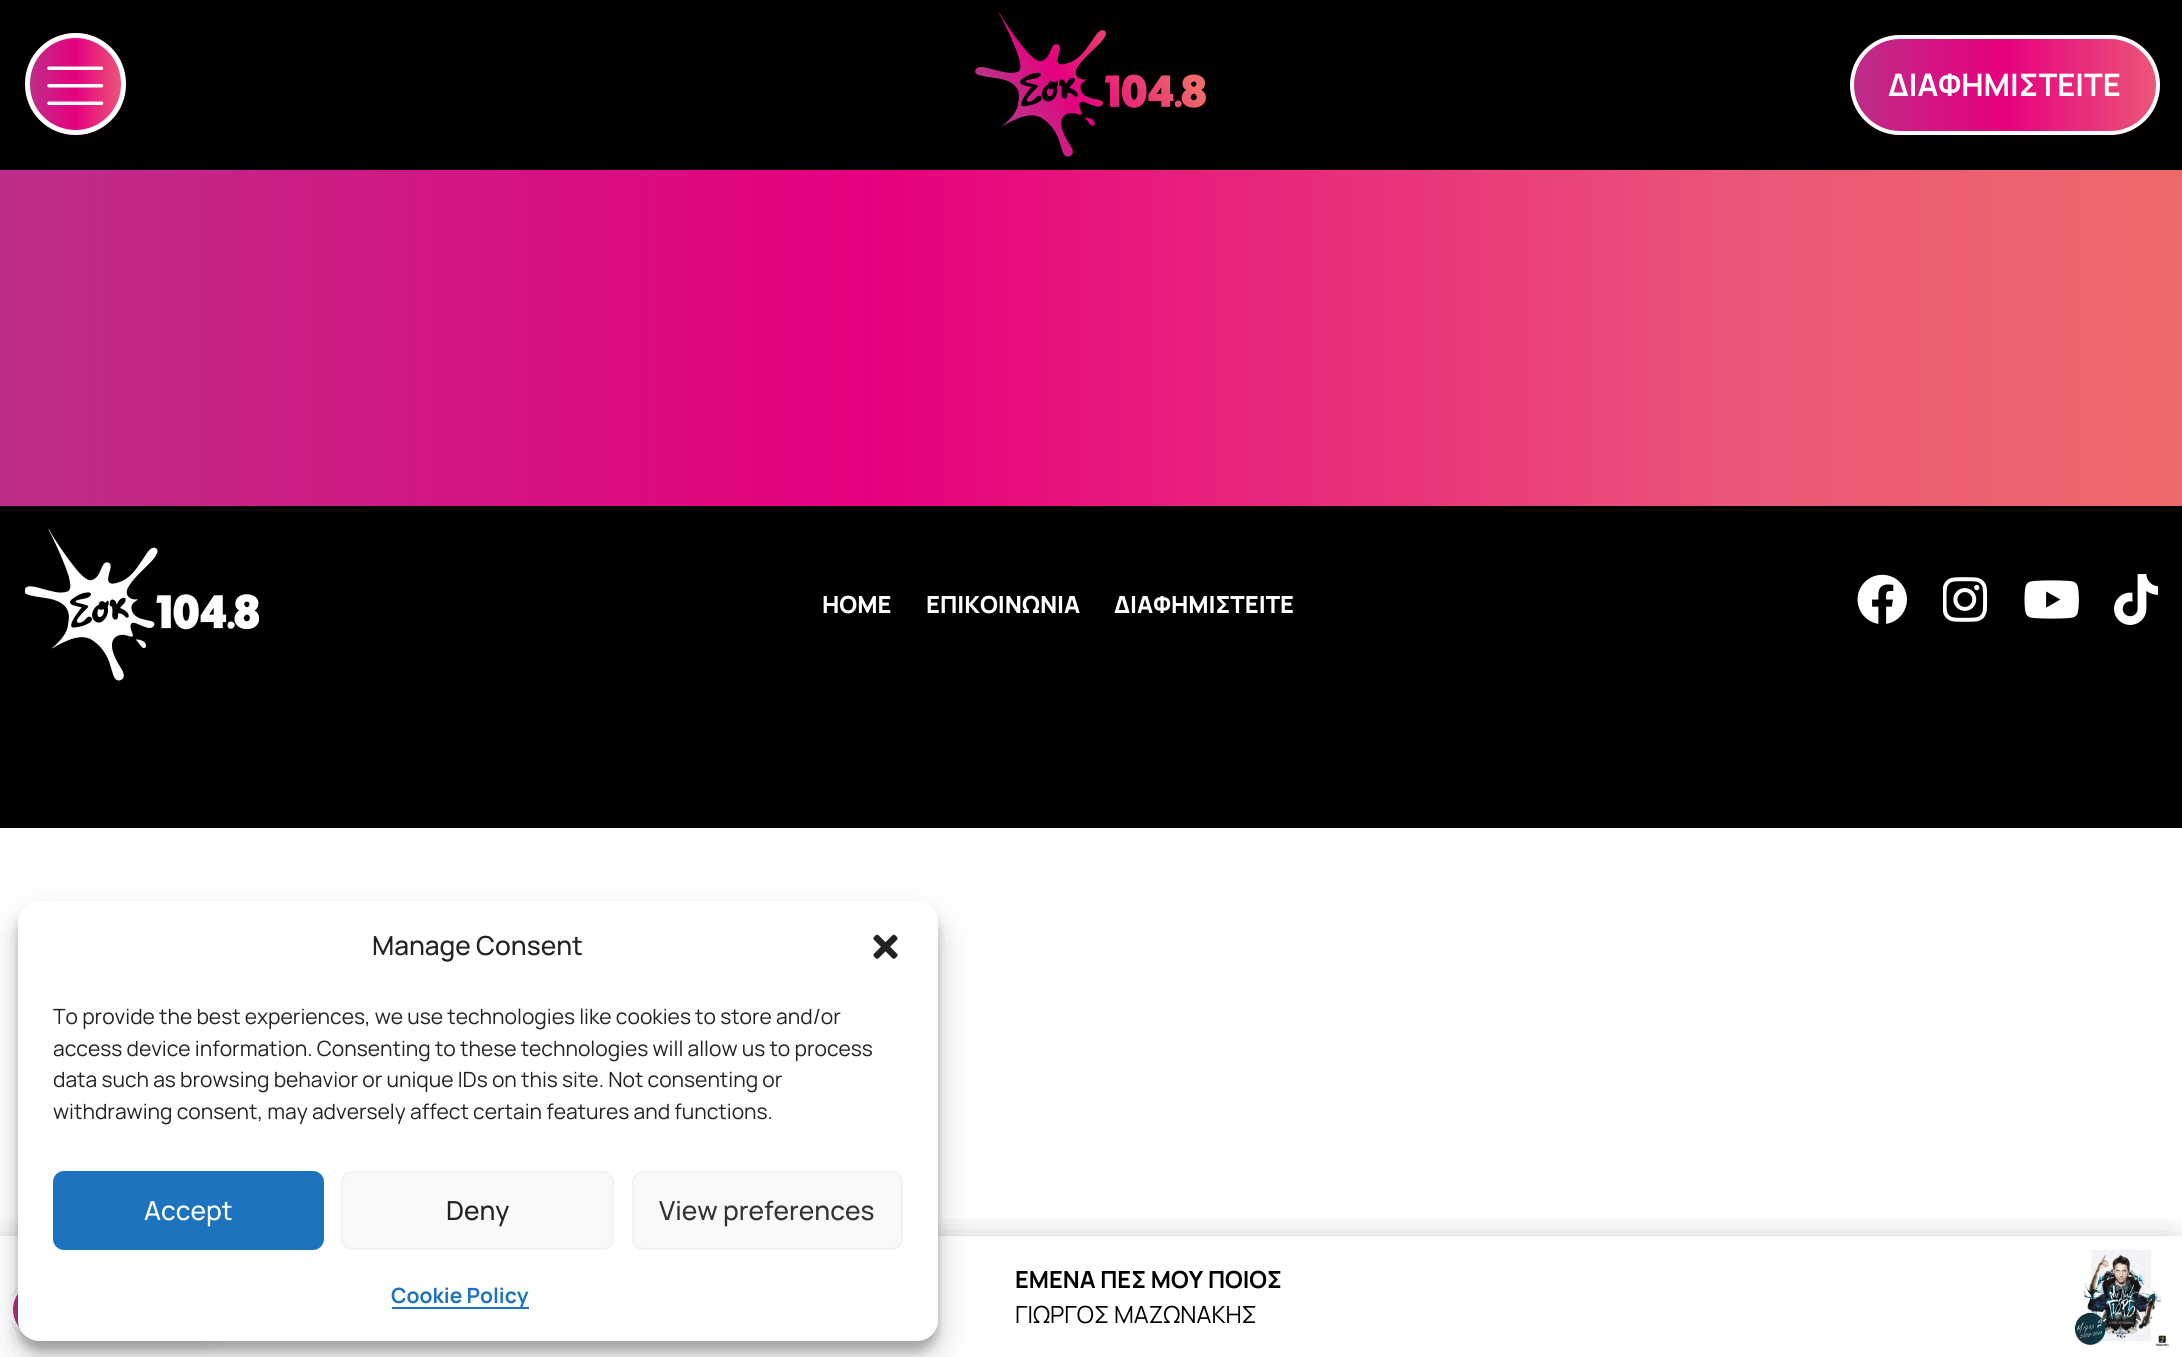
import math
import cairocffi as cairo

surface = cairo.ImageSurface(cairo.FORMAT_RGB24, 2182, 1357)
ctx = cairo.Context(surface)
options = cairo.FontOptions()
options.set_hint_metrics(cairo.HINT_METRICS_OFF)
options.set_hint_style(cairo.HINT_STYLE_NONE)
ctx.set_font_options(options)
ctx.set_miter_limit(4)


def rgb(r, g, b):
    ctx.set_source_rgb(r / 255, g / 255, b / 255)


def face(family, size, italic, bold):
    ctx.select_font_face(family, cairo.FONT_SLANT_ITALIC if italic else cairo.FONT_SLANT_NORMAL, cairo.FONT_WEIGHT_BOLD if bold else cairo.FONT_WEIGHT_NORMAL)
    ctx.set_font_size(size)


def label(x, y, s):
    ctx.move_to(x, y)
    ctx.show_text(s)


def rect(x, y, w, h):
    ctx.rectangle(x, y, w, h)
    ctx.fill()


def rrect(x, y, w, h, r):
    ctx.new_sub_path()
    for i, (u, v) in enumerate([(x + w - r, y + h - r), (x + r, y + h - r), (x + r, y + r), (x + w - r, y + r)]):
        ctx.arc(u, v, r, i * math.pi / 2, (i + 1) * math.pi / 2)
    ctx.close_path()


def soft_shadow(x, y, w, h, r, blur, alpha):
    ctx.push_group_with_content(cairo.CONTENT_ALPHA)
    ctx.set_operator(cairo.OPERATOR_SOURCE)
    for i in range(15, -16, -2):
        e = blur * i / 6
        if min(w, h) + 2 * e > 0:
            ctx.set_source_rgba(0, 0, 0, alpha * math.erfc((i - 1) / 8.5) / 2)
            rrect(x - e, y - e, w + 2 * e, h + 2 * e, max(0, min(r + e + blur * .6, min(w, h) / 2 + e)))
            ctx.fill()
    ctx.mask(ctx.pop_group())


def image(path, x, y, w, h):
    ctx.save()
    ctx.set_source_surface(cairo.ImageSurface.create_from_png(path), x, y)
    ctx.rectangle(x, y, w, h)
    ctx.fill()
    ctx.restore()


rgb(255, 255, 255)
ctx.paint()
rgb(0, 0, 0)
rect(0, 0, 2182, 170)
ctx.save()
rrect(25, 33, 101, 102, 50.5)
ctx.clip()
gradient = cairo.LinearGradient(30, 84, 121, 84)
gradient.add_color_stop_rgba(0, 0.741, 0.18, 0.537, 1)
gradient.add_color_stop_rgba(0.5, 0.902, 0, 0.498, 1)
gradient.add_color_stop_rgba(1, 0.922, 0.337, 0.471, 1)
ctx.set_source(gradient)
rect(30, 33, 91, 102)
ctx.restore()
rrect(27.5, 35.5, 96, 97, 48)
rgb(255, 255, 255)
ctx.set_line_width(5)
ctx.stroke()
image('image0.png', 47, 66, 57, 39)
image('image1.png', 975, 12, 231, 145)
ctx.save()
rrect(1850, 35, 310, 100, 50)
ctx.clip()
gradient = cairo.LinearGradient(1853, 85, 2156, 85)
gradient.add_color_stop_rgba(0, 0.741, 0.18, 0.537, 1)
gradient.add_color_stop_rgba(0.5, 0.902, 0, 0.498, 1)
gradient.add_color_stop_rgba(1, 0.922, 0.337, 0.471, 1)
ctx.set_source(gradient)
rect(1853, 35, 303, 100)
ctx.restore()
rrect(1852, 37, 306, 96, 48)
ctx.set_line_width(4)
ctx.stroke()
face('Manrope', 31, 0, 1)
label(1888, 96, 'ΔΙΑΦΗΜΙΣΤΕΙΤΕ')
gradient = cairo.LinearGradient(0, 338, 2182, 338)
gradient.add_color_stop_rgba(0, 0.741, 0.18, 0.537, 1)
gradient.add_color_stop_rgba(0.4, 0.902, 0, 0.498, 1)
gradient.add_color_stop_rgba(0.8, 0.922, 0.337, 0.471, 1)
gradient.add_color_stop_rgba(1, 0.933, 0.412, 0.416, 1)
ctx.set_source(gradient)
rect(0, 170, 2182, 336)
rgb(0, 0, 0)
rect(0, 506, 2182, 322)
image('image2.png', 25, 529, 234, 152)
face('Manrope ExtraBold', 23.6, 0, 0)
rgb(255, 255, 255)
label(822, 613, 'HOME')
label(926, 613, 'ΕΠΙΚΟΙΝΩΝΙΑ')
label(1114, 613, 'ΔΙΑΦΗΜΙΣΤΕΙΤΕ')
image('image3.png', 1857, 574, 50, 50)
image('image4.png', 1943, 577, 45, 45)
image('image5.png', 2024, 580, 55, 39)
image('image6.png', 2114, 574, 44, 51)
ctx.save()
ctx.rectangle(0, 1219, 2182, 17)
ctx.clip()
rgb(0, 0, 0)
soft_shadow(11, 1243, 2161, 101, 0, 16, 0.3)
ctx.restore()
rgb(0, 0, 0)
soft_shadow(26, 1318, 184, 28, 14, 11.5, 0.06)
ctx.save()
rrect(9, 1278, 219, 63, 31.5)
ctx.clip()
gradient = cairo.LinearGradient(12, 1309, 436, 1309)
gradient.add_color_stop_rgba(0, 0.741, 0.18, 0.537, 1)
gradient.add_color_stop_rgba(0.51, 0.922, 0.337, 0.471, 1)
gradient.add_color_stop_rgba(1, 0.741, 0.18, 0.537, 1)
ctx.set_source(gradient)
ctx.new_path()
ctx.move_to(12, 1278)
ctx.line_to(196.5, 1278)
ctx.curve_to(214, 1278, 228, 1292, 228, 1309.5)
ctx.curve_to(228, 1327, 214, 1341, 196.5, 1341)
ctx.line_to(12, 1341)
ctx.close_path()
ctx.fill()
ctx.restore()
rrect(11, 1280, 215, 59, 29.5)
rgb(255, 255, 255)
ctx.stroke()
rgb(0, 0, 0)
soft_shadow(18, 912, 920, 439, 21, 5, 0.23)
soft_shadow(18, 919, 920, 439, 21, 17.5, 0.19)
rgb(255, 255, 255)
rrect(18, 901, 920, 440, 21)
ctx.fill()
face('Manrope Medium', 26.25, 0, 0)
rgb(34, 34, 34)
label(372, 955, 'Manage Consent')
image('image7.png', 873, 934, 25, 25)
face('Manrope', 21, 0, 0)
label(53, 1024, 'To provide the best experiences, we use technologies like cookies to store and/or')
label(53, 1056, 'access device information. Consenting to these technologies will allow us to process')
label(53, 1087, 'data such as browsing behavior or unique IDs on this site. Not consenting or')
label(53, 1119, 'withdrawing consent, may adversely affect certain features and functions.')
rgb(30, 115, 190)
rrect(54, 1172, 269, 77, 10)
ctx.fill_preserve()
ctx.set_line_width(2)
ctx.stroke()
face('Manrope Medium', 26.25, 0, 0)
rgb(255, 255, 255)
label(144, 1220, 'Accept')
rgb(249, 249, 249)
rrect(342, 1172, 271, 77, 10)
ctx.fill_preserve()
rgb(242, 242, 242)
ctx.stroke()
rgb(34, 34, 34)
label(446, 1220, 'Deny')
rgb(249, 249, 249)
rrect(633, 1172, 269, 77, 10)
ctx.fill_preserve()
rgb(242, 242, 242)
ctx.stroke()
rgb(51, 51, 51)
label(659, 1220, 'View preferences')
rgb(30, 115, 190)
rect(392, 1307, 137, 2)
face('Manrope', 21, 0, 1)
label(391, 1303, 'Cookie Policy')
face('Manrope', 23.6, 0, 1)
rgb(0, 0, 0)
label(1015, 1288, 'ΕΜΕΝΑ ΠΕΣ ΜΟΥ ΠΟΙΟΣ')
face('Manrope', 23.6, 0, 0)
label(1015, 1323, 'ΓΙΩΡΓΟΣ ΜΑΖΩΝΑΚΗΣ')
image('image8.png', 2074, 1250, 95, 96)
surface.write_to_png('render.png')
